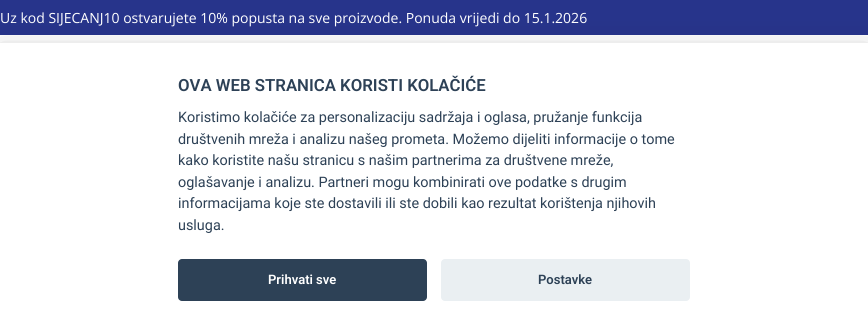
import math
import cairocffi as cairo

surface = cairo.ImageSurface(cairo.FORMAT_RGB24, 868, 333)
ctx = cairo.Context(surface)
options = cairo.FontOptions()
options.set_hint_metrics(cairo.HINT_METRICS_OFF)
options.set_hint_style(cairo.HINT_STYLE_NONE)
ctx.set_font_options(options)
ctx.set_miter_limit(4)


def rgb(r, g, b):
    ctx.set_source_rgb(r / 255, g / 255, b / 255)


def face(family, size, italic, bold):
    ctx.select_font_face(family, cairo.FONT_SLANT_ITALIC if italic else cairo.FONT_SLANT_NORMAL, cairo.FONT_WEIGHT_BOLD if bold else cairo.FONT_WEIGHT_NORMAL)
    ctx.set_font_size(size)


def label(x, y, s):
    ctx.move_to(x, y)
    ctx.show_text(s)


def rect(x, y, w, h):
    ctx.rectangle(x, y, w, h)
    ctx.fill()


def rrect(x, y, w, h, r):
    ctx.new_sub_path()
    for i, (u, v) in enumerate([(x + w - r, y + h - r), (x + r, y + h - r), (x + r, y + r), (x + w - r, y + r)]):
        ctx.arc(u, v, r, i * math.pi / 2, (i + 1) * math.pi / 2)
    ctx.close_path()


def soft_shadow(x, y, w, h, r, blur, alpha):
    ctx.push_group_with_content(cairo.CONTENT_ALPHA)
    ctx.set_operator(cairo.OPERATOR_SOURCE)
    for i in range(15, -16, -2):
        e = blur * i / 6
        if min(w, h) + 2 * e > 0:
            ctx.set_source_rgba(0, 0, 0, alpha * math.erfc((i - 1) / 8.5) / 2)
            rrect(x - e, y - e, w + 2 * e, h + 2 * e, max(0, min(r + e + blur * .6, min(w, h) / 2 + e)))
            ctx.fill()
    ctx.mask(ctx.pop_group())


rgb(255, 255, 255)
ctx.paint()
rgb(39, 52, 139)
rect(0, 0, 868, 35)
face('Open Sans', 14, 0, 0)
rgb(255, 255, 255)
label(0, 23, 'Uz kod SIJECANJ10 ostvarujete 10% popusta na sve proizvode. Ponuda vrijedi do 15.1.2026')
rgb(2, 2, 3)
soft_shadow(0, 53, 868, 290, 0, 15, 0.28)
rgb(255, 255, 255)
rect(0, 43, 868, 290)
face('Roboto SemiBold', 16.75, 0, 0)
rgb(45, 65, 86)
label(178, 91, 'OVA WEB STRANICA KORISTI KOLAČIĆE')
face('Roboto', 14.4, 0, 0)
label(178, 122, 'Koristimo kolačiće za personalizaciju sadržaja i oglasa, pružanje funkcija')
label(178, 144, 'društvenih mreža i analizu našeg prometa. Možemo dijeliti informacije o tome')
label(178, 165, 'kako koristite našu stranicu s našim partnerima za društvene mreže,')
label(178, 187, 'oglašavanje i analizu. Partneri mogu kombinirati ove podatke s drugim')
label(178, 208, 'informacijama koje ste dostavili ili ste dobili kao rezultat korištenja njihovih')
label(178, 230, 'usluga.')
rrect(178, 259, 249, 42, 4)
ctx.fill()
face('Roboto SemiBold', 13, 0, 0)
rgb(255, 255, 255)
label(268, 284, 'Prihvati sve')
rgb(234, 239, 242)
rrect(441, 259, 249, 42, 4)
ctx.fill()
rgb(45, 65, 86)
label(538, 284, 'Postavke')
surface.write_to_png('render.png')
